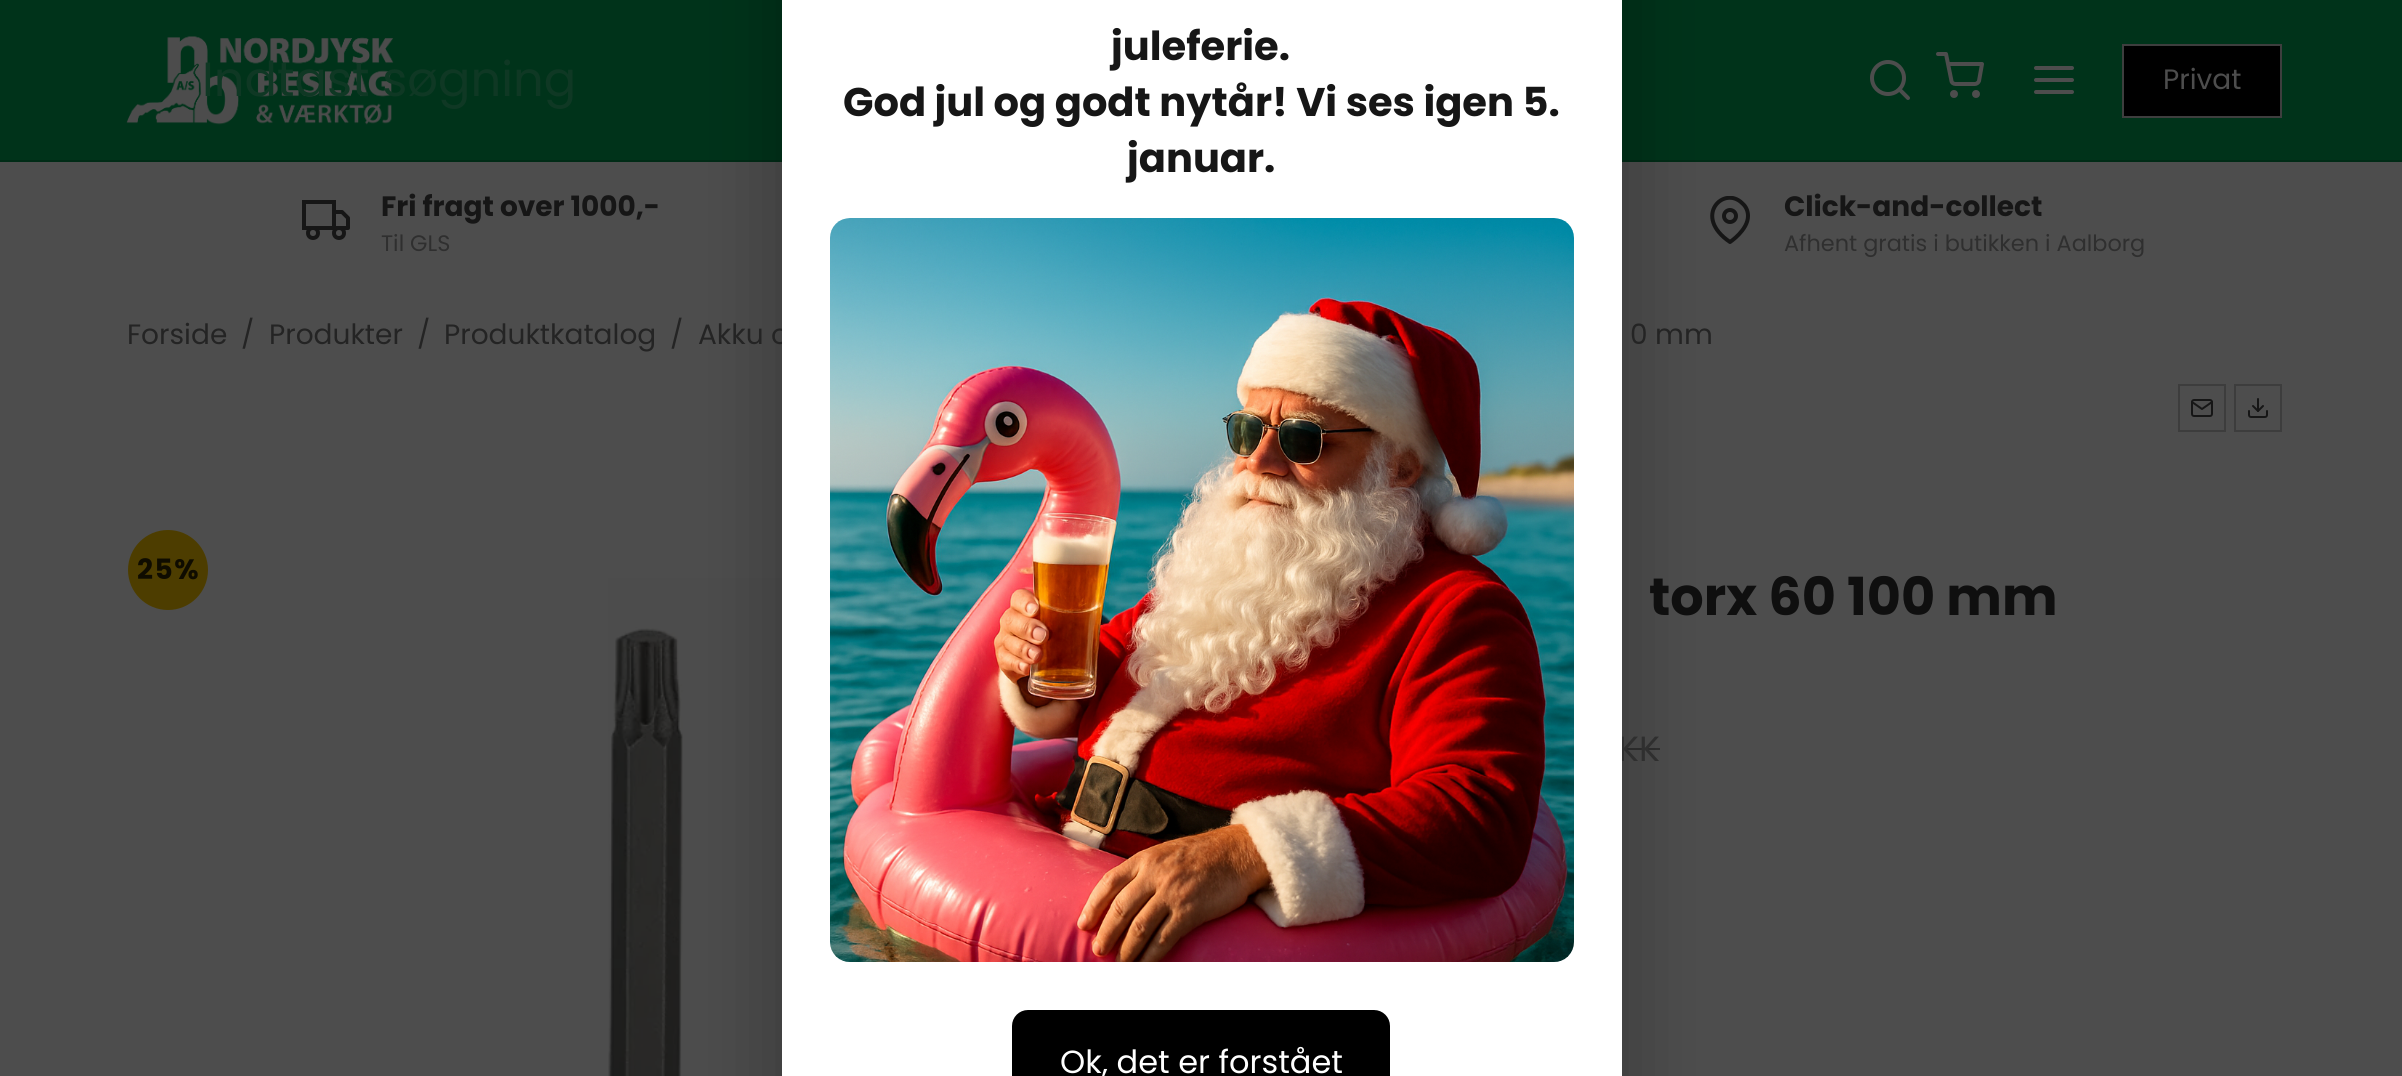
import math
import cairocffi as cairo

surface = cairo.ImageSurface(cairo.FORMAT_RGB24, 2402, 1076)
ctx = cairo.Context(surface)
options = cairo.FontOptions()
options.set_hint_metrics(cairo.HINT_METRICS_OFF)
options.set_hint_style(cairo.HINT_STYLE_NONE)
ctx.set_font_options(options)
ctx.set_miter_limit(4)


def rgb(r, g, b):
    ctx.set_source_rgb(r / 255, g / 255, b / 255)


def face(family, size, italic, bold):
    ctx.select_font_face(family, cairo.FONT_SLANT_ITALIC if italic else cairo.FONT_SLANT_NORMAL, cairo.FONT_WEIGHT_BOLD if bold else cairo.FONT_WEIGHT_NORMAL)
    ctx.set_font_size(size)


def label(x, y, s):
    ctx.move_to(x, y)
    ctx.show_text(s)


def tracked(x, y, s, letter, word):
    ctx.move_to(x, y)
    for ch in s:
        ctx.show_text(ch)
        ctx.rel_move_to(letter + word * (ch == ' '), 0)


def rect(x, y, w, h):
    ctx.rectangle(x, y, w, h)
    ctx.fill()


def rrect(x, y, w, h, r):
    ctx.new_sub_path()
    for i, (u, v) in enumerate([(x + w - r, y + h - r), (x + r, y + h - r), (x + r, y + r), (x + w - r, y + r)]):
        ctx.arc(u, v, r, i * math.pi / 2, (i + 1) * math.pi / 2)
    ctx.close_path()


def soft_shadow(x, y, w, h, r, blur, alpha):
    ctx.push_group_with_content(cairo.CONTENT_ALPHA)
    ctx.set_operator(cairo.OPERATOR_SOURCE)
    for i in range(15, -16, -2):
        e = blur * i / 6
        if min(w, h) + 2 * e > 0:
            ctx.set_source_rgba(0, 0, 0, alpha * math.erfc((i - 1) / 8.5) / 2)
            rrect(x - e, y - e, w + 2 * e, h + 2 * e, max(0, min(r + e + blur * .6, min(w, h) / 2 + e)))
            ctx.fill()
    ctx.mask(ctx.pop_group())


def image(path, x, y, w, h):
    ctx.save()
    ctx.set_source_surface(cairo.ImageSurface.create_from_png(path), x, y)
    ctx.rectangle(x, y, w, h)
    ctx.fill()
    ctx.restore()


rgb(77, 77, 77)
ctx.paint()
rgb(0, 51, 26)
rect(0, 0, 2402, 160)
rgb(0, 43, 22)
rect(0, 160, 2402, 2)
ctx.save()
ctx.rectangle(1706, 196, 48, 48)
ctx.clip()
ctx.new_path()
ctx.move_to(1748, 216)
ctx.curve_to(1748, 230, 1730, 242, 1730, 242)
ctx.curve_to(1692, 216.5, 1724, 184.5, 1742.5, 203.5)
ctx.curve_to(1746, 206.5, 1748, 211, 1748, 216)
ctx.close_path()
rgb(22, 22, 22)
ctx.set_line_width(4)
ctx.set_line_cap(cairo.LINE_CAP_ROUND)
ctx.set_line_join(cairo.LINE_JOIN_ROUND)
ctx.stroke()
ctx.restore()
ctx.arc(1730, 216, 6, 0, 2 * math.pi)
rgb(22, 22, 22)
ctx.set_line_width(4)
ctx.stroke()
image('image4.png', 608, 578, 174, 498)
rgb(47, 47, 47)
rect(1622, 748, 38, 2)
rgb(0, 0, 0)
soft_shadow(782, -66, 840, 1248, 28, 40, 0.3)
face('Poppins', 28, 0, 0)
rgb(36, 36, 36)
label(698, 344, 'Akku o')
face('Poppins', 35, 0, 0)
rgb(47, 47, 47)
label(1618, 761, 'KK')
rgb(255, 255, 255)
rect(782, 0, 840, 1076)
face('Poppins', 40, 0, 1)
rgb(22, 22, 22)
label(1111, 60, 'juleferie.')
label(843, 116, 'God jul og godt nytår! Vi ses igen 5.')
label(1127, 172, 'januar.')
image('image0.png', 830, 218, 744, 744)
rgb(0, 0, 0)
rrect(1014, 1012, 374, 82, 14)
ctx.fill_preserve()
ctx.stroke()
face('Poppins', 32, 0, 0)
rgb(255, 255, 255)
label(1060, 1073, 'Ok, det er forstået')
image('image1.png', 126, 36, 268, 89)
face('Poppins', 48, 0, 0)
rgb(15, 56, 36)
label(202, 96, 'Indtast søgning')
ctx.new_path()
ctx.arc(1888, 78, 16, 0, 2 * math.pi)
rgb(77, 77, 77)
ctx.stroke()
ctx.new_path()
ctx.move_to(1908, 98)
ctx.line_to(1899.5, 89.5)
ctx.set_line_cap(cairo.LINE_CAP_ROUND)
ctx.set_line_join(cairo.LINE_JOIN_ROUND)
ctx.stroke()
ctx.new_path()
ctx.move_to(1938, 54)
ctx.line_to(1946, 54)
ctx.line_to(1951.5, 81)
ctx.curve_to(1951.5, 82.5, 1953.5, 84, 1955.5, 84)
ctx.line_to(1975, 84)
ctx.curve_to(1976.5, 84, 1978.5, 82.5, 1979, 81)
ctx.line_to(1982, 64)
ctx.line_to(1948, 64)
ctx.stroke()
ctx.arc(1954, 94, 2, 0, 2 * math.pi)
ctx.set_line_cap(cairo.LINE_CAP_BUTT)
ctx.set_line_join(cairo.LINE_JOIN_MITER)
ctx.stroke()
ctx.arc(1976, 94, 2, 0, 2 * math.pi)
ctx.stroke()
ctx.new_path()
ctx.move_to(2036, 80)
ctx.line_to(2072, 80)
ctx.move_to(2036, 68)
ctx.line_to(2072, 68)
ctx.move_to(2036, 92)
ctx.line_to(2072, 92)
ctx.set_line_cap(cairo.LINE_CAP_ROUND)
ctx.set_line_join(cairo.LINE_JOIN_ROUND)
ctx.stroke()
rgb(0, 0, 0)
ctx.rectangle(2123, 45, 158, 72)
ctx.fill_preserve()
rgb(62, 62, 62)
ctx.set_line_width(2)
ctx.set_line_cap(cairo.LINE_CAP_BUTT)
ctx.set_line_join(cairo.LINE_JOIN_MITER)
ctx.stroke()
face('Poppins', 28, 0, 0)
rgb(77, 77, 77)
label(2163, 89, 'Privat')
ctx.rectangle(304, 202, 30, 26)
rgb(22, 22, 22)
ctx.set_line_width(4)
ctx.stroke()
ctx.new_path()
ctx.move_to(334, 212)
ctx.line_to(342, 212)
ctx.line_to(348, 218)
ctx.line_to(348, 228)
ctx.line_to(334, 228)
ctx.close_path()
ctx.set_line_cap(cairo.LINE_CAP_ROUND)
ctx.set_line_join(cairo.LINE_JOIN_ROUND)
ctx.stroke()
ctx.arc(313, 233, 5, 0, 2 * math.pi)
ctx.set_line_cap(cairo.LINE_CAP_BUTT)
ctx.set_line_join(cairo.LINE_JOIN_MITER)
ctx.stroke()
ctx.arc(339, 233, 5, 0, 2 * math.pi)
ctx.stroke()
face('Poppins', 28, 0, 1)
label(381, 216, 'Fri fragt over 1000,-')
face('Poppins', 22.4, 0, 0)
rgb(47, 47, 47)
label(381, 251, 'Til GLS')
face('Poppins', 28, 0, 1)
rgb(22, 22, 22)
label(1784, 216, 'Click-and-collect')
face('Poppins', 22.4, 0, 0)
rgb(47, 47, 47)
label(1784, 251, 'Afhent gratis i butikken i Aalborg')
face('Poppins', 28, 0, 0)
rgb(36, 36, 36)
label(127, 344, 'Forside')
label(241, 344, '/')
label(269, 344, 'Produkter')
label(417, 344, '/')
label(444, 344, 'Produktkatalog')
label(670, 344, '/')
label(1630, 344, '0 mm')
ctx.rectangle(2179, 385, 46, 46)
rgb(61, 61, 61)
ctx.set_line_width(2)
ctx.stroke()
image('image2.png', 2191, 399, 22, 18)
ctx.rectangle(2235, 385, 46, 46)
ctx.stroke()
image('image3.png', 2248, 398, 20, 20)
rgb(77, 61, 0)
ctx.arc(168, 570, 40, 0, 2 * math.pi)
ctx.fill()
face('Poppins', 28, 0, 1)
rgb(15, 12, 0)
tracked(137, 579, '25%', 1.5, 0)
face('Poppins', 52.5, 0, 1)
rgb(15, 15, 15)
label(1649, 615, 'torx 60 100 mm')
surface.write_to_png('render.png')
